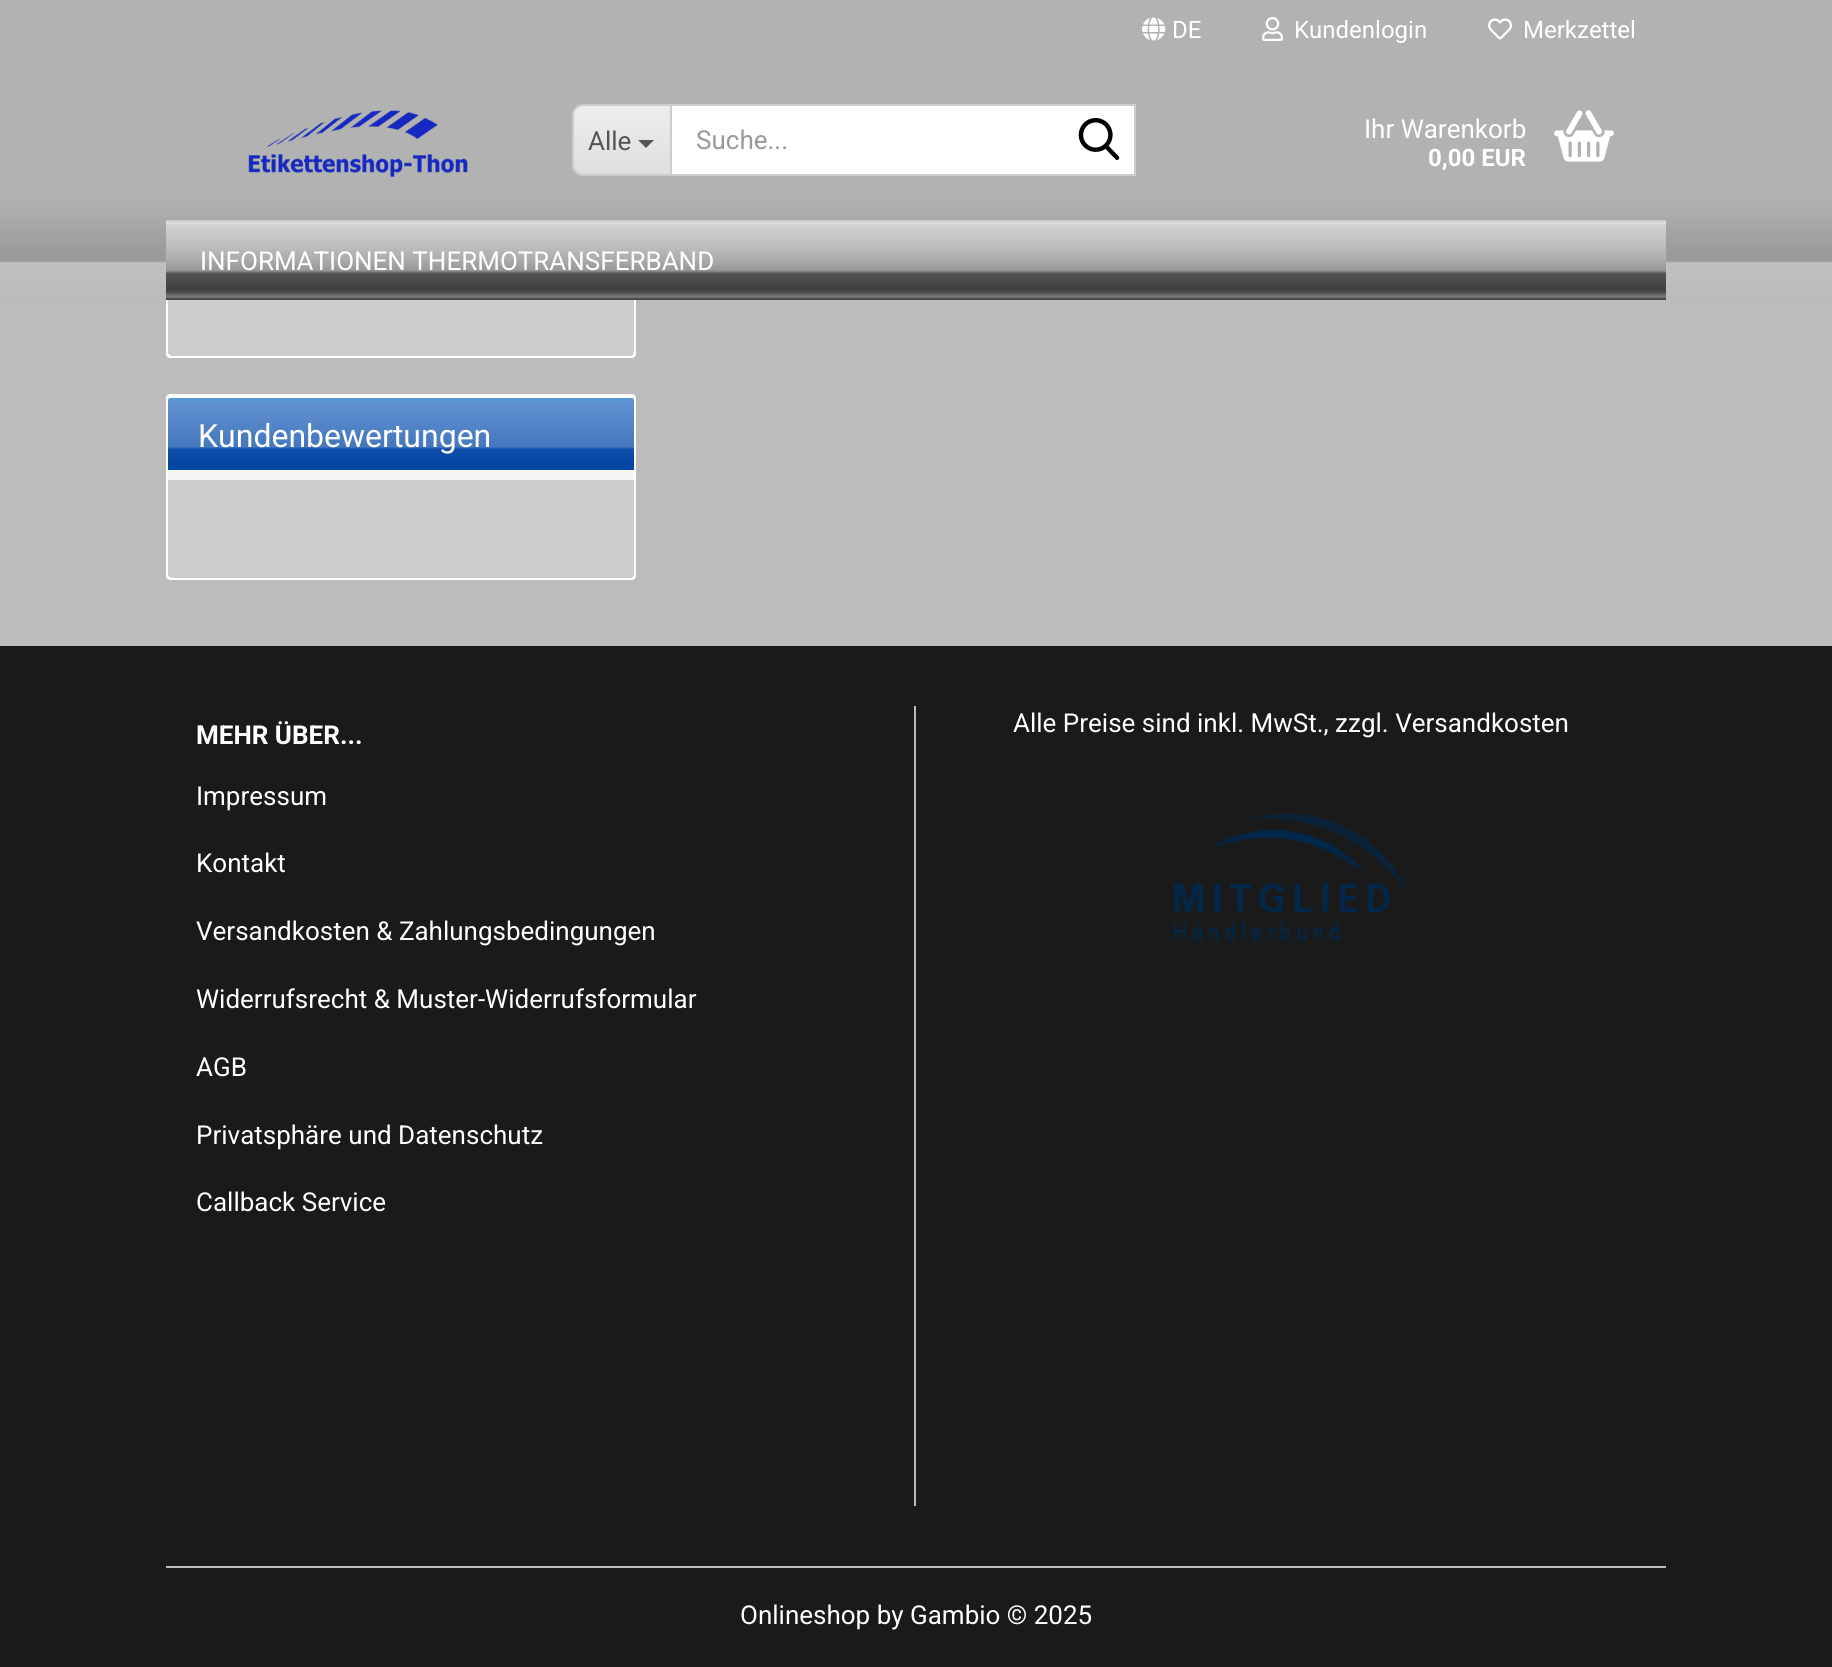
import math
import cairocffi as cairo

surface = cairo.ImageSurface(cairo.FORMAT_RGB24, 1832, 1667)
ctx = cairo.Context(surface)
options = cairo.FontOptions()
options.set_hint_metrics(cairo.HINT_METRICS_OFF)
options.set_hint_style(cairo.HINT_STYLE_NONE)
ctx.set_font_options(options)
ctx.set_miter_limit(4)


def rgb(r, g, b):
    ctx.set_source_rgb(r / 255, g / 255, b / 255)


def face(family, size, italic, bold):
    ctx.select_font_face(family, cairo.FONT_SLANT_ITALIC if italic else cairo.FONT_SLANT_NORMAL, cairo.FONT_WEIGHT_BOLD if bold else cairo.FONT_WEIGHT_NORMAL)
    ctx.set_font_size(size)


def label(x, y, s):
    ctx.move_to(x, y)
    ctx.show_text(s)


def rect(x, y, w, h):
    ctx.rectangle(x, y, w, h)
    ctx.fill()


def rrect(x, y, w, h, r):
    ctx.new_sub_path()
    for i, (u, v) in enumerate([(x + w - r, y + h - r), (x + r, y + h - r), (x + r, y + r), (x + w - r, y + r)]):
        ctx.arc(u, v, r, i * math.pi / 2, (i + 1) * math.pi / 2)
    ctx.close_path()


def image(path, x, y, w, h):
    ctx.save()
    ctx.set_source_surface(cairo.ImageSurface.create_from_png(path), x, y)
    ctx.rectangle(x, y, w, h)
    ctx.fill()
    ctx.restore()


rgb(188, 188, 188)
ctx.paint()
rgb(255, 255, 255)
rrect(167, -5, 468, 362, 3)
ctx.fill_preserve()
ctx.stroke()
rgb(205, 205, 205)
ctx.new_path()
ctx.move_to(168, -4)
ctx.line_to(634, -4)
ctx.line_to(634, 352)
ctx.curve_to(634, 354, 632, 356, 630, 356)
ctx.line_to(172, 356)
ctx.curve_to(170, 356, 168, 354, 168, 352)
ctx.close_path()
ctx.fill()
image('image0.png', 0, 0, 1832, 300)
image('image1.png', 1142, 17, 24, 24)
face('Roboto', 24, 0, 0)
rgb(255, 255, 255)
label(1172, 38, 'DE')
image('image2.png', 1262, 17, 21, 24)
label(1294, 38, 'Kundenlogin')
image('image3.png', 1488, 18, 24, 22)
label(1523, 38, 'Merkzettel')
image('image4.png', 248, 110, 220, 67)
ctx.save()
ctx.new_path()
ctx.move_to(584, 104)
ctx.line_to(670, 104)
ctx.line_to(670, 176)
ctx.line_to(584, 176)
ctx.curve_to(577.5, 176, 572, 170.5, 572, 164)
ctx.line_to(572, 116)
ctx.curve_to(572, 109.5, 577.5, 104, 584, 104)
ctx.close_path()
ctx.clip()
gradient = cairo.LinearGradient(622, 106, 622, 174)
gradient.add_color_stop_rgba(0, 0.933, 0.933, 0.933, 1)
gradient.add_color_stop_rgba(1, 0.871, 0.871, 0.871, 1)
ctx.set_source(gradient)
rect(572, 106, 98, 68)
ctx.restore()
rgb(204, 204, 204)
ctx.set_fill_rule(cairo.FILL_RULE_EVEN_ODD)
ctx.new_path()
ctx.move_to(584, 104)
ctx.line_to(670, 104)
ctx.line_to(670, 176)
ctx.line_to(584, 176)
ctx.curve_to(577, 176, 572, 171, 572, 164)
ctx.line_to(572, 116)
ctx.curve_to(572, 109, 577, 104, 584, 104)
ctx.close_path()
ctx.move_to(584, 106)
ctx.line_to(670, 106)
ctx.line_to(670, 174)
ctx.line_to(584, 174)
ctx.curve_to(578, 174, 574, 170, 574, 164)
ctx.line_to(574, 116)
ctx.curve_to(574, 110, 578, 106, 584, 106)
ctx.close_path()
ctx.fill()
face('Roboto', 26, 0, 0)
rgb(85, 85, 85)
label(588, 150, 'Alle')
ctx.set_fill_rule(cairo.FILL_RULE_WINDING)
ctx.new_path()
ctx.move_to(638, 140)
ctx.line_to(654, 140)
ctx.line_to(646, 148)
ctx.close_path()
ctx.fill()
rgb(255, 255, 255)
ctx.rectangle(671, 105, 464, 70)
ctx.fill_preserve()
rgb(204, 204, 204)
ctx.stroke()
rgb(153, 153, 153)
label(696, 149, 'Suche...')
image('image5.png', 1078, 118, 42, 42)
rgb(255, 255, 255)
label(1364, 138, 'Ihr Warenkorb')
face('Roboto', 24, 0, 1)
label(1428, 166, '0,00 EUR')
image('image6.png', 1554, 110, 60, 52)
image('image7.png', 166, 220, 1500, 80)
face('Roboto', 26, 0, 0)
label(200, 270, 'INFORMATIONEN THERMOTRANSFERBAND')
rrect(167, 395, 468, 184, 3)
ctx.fill_preserve()
ctx.stroke()
rgb(245, 245, 245)
ctx.new_path()
ctx.move_to(170, 396)
ctx.line_to(632, 396)
ctx.curve_to(633, 396, 634, 397, 634, 398)
ctx.line_to(634, 480)
ctx.line_to(168, 480)
ctx.line_to(168, 398)
ctx.curve_to(168, 397, 169, 396, 170, 396)
ctx.close_path()
ctx.fill()
image('image8.png', 168, 396, 466, 74)
rgb(255, 255, 255)
ctx.new_path()
ctx.move_to(170, 398)
ctx.line_to(632, 398)
ctx.curve_to(633, 398, 634, 399, 634, 400)
ctx.curve_to(634, 398, 634, 396, 632, 396)
ctx.line_to(169, 396)
ctx.line_to(168, 397)
ctx.line_to(168, 400)
ctx.curve_to(168, 399, 169, 398, 170, 398)
ctx.close_path()
ctx.fill()
face('Roboto', 32, 0, 0)
label(198, 447, 'Kundenbewertungen')
rgb(205, 205, 205)
ctx.new_path()
ctx.move_to(168, 480)
ctx.line_to(634, 480)
ctx.line_to(634, 574)
ctx.curve_to(634, 576, 632, 578, 630, 578)
ctx.line_to(172, 578)
ctx.curve_to(170, 578, 168, 576, 168, 574)
ctx.close_path()
ctx.fill()
rgb(26, 26, 26)
rect(0, 646, 1832, 1021)
rgb(187, 187, 187)
rect(166, 1566, 1500, 2)
rect(914, 706, 2, 800)
face('Roboto', 26, 0, 1)
rgb(255, 255, 255)
label(196, 744, 'MEHR ÜBER...')
face('Roboto', 26, 0, 0)
label(196, 805, 'Impressum')
label(196, 872, 'Kontakt')
label(196, 940, 'Versandkosten & Zahlungsbedingungen')
label(196, 1008, 'Widerrufsrecht & Muster-Widerrufsformular')
label(196, 1076, 'AGB')
label(196, 1144, 'Privatsphäre und Datenschutz')
label(196, 1211, 'Callback Service')
label(1013, 732, 'Alle Preise sind inkl. MwSt., zzgl. Versandkosten')
image('image9.png', 1173, 813, 236, 128)
label(740, 1624, 'Onlineshop by Gambio © 2025')
surface.write_to_png('render.png')
